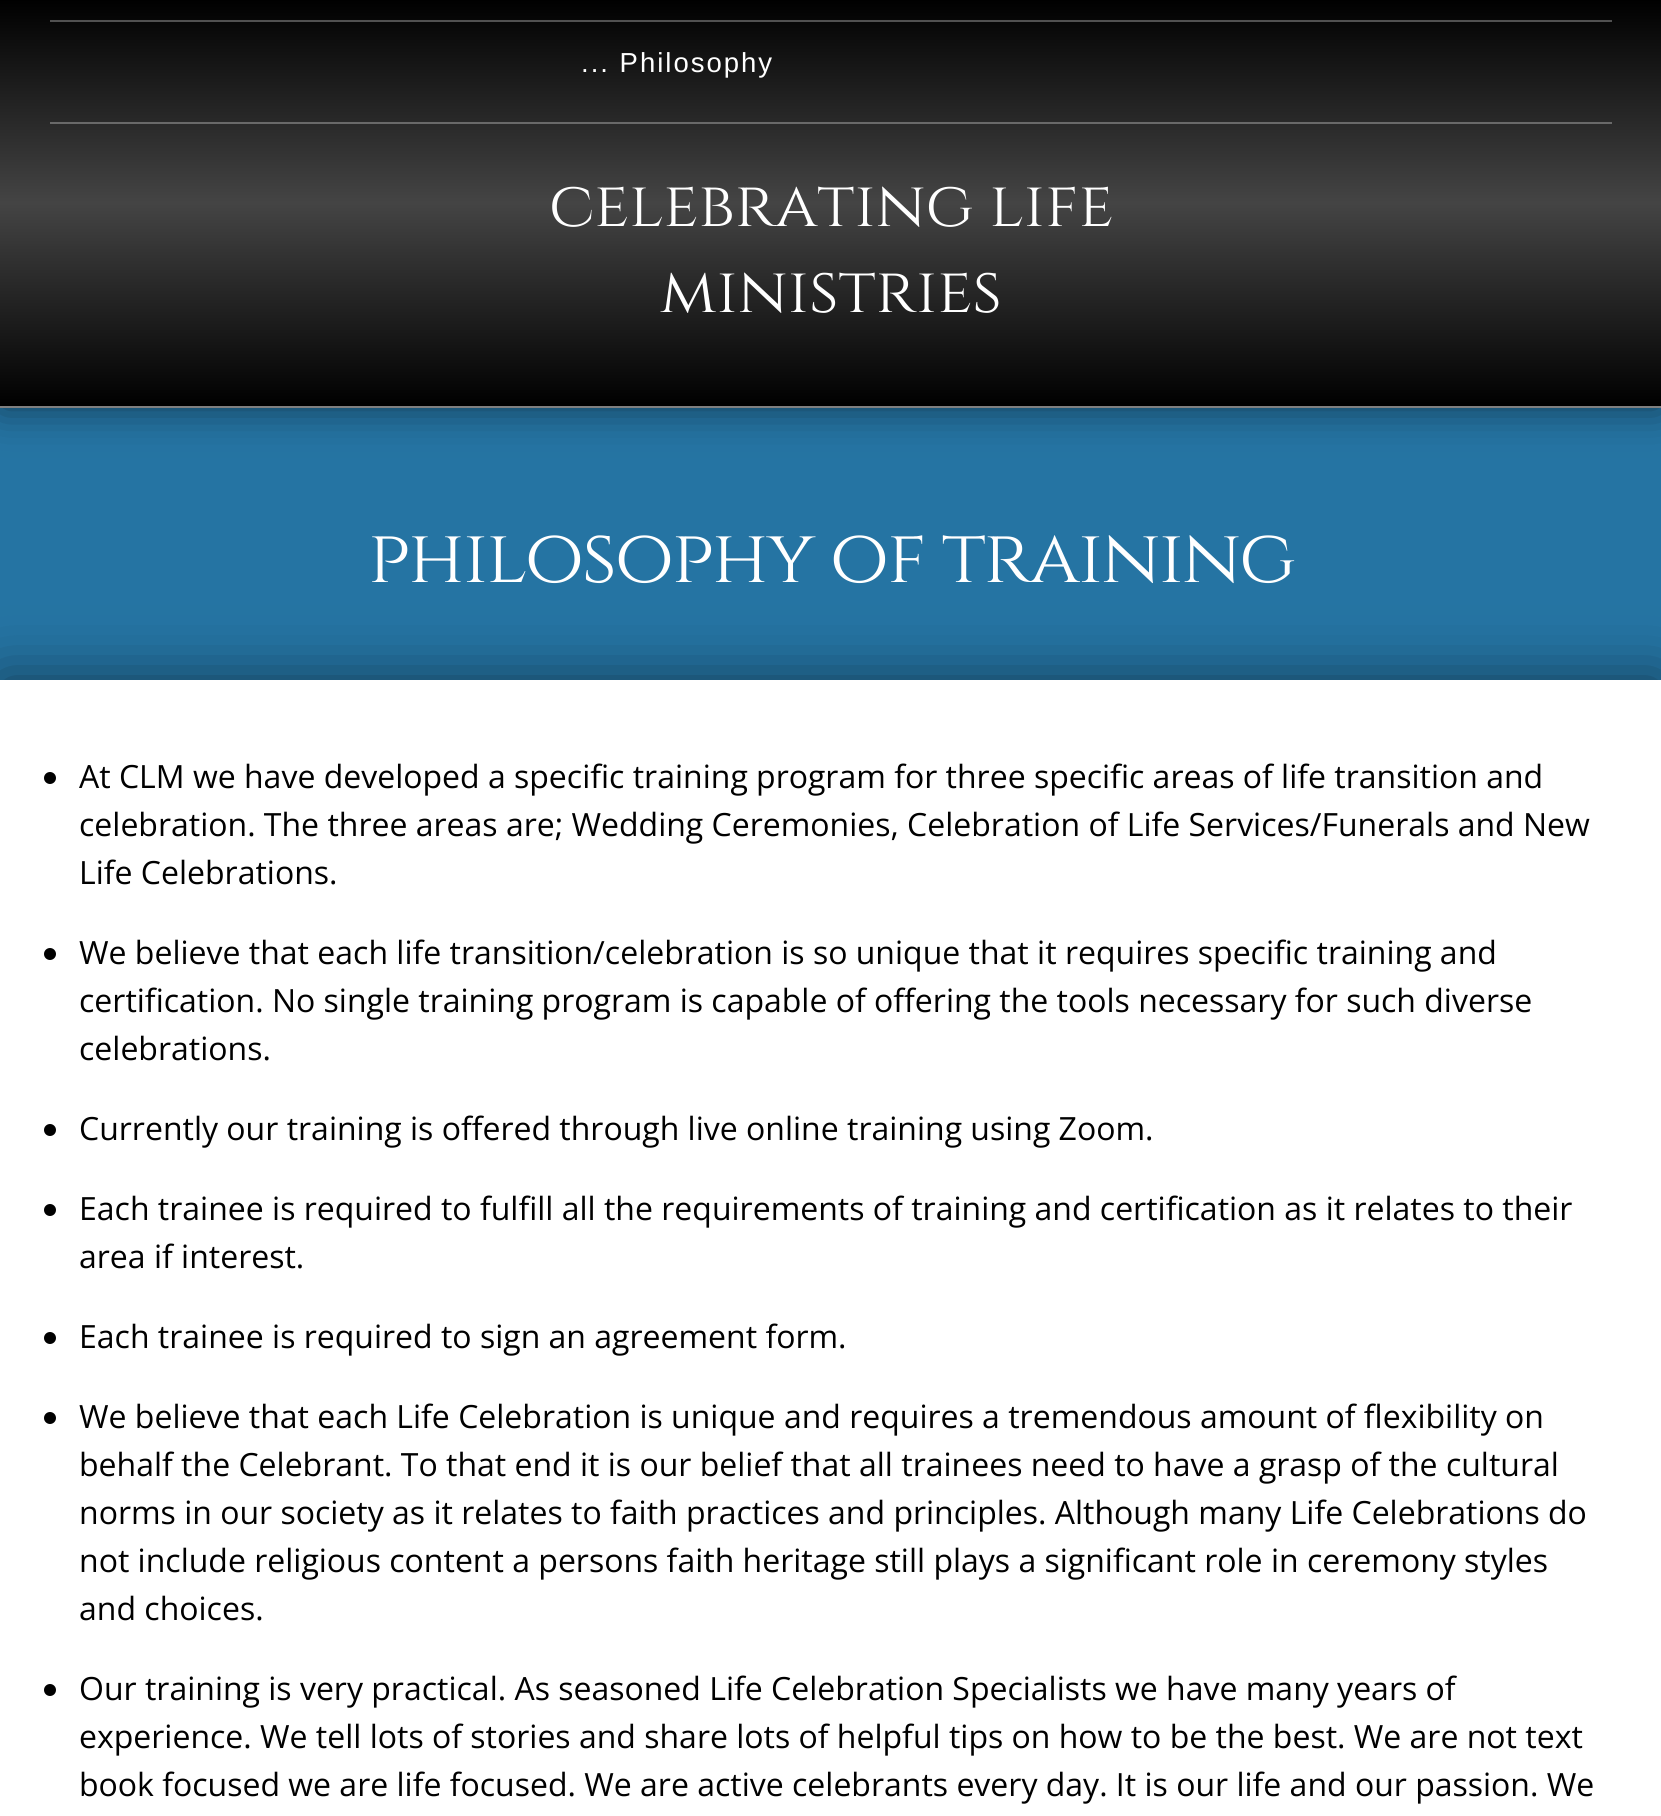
import math
import cairocffi as cairo

surface = cairo.ImageSurface(cairo.FORMAT_RGB24, 1661, 1816)
ctx = cairo.Context(surface)
options = cairo.FontOptions()
options.set_hint_metrics(cairo.HINT_METRICS_OFF)
options.set_hint_style(cairo.HINT_STYLE_NONE)
ctx.set_font_options(options)
ctx.set_miter_limit(4)


def rgb(r, g, b):
    ctx.set_source_rgb(r / 255, g / 255, b / 255)


def face(family, size, italic, bold):
    ctx.select_font_face(family, cairo.FONT_SLANT_ITALIC if italic else cairo.FONT_SLANT_NORMAL, cairo.FONT_WEIGHT_BOLD if bold else cairo.FONT_WEIGHT_NORMAL)
    ctx.set_font_size(size)


def label(x, y, s):
    ctx.move_to(x, y)
    ctx.show_text(s)


def tracked(x, y, s, letter, word):
    ctx.move_to(x, y)
    for ch in s:
        ctx.show_text(ch)
        ctx.rel_move_to(letter + word * (ch == ' '), 0)


def rect(x, y, w, h):
    ctx.rectangle(x, y, w, h)
    ctx.fill()


def rrect(x, y, w, h, r):
    ctx.new_sub_path()
    for i, (u, v) in enumerate([(x + w - r, y + h - r), (x + r, y + h - r), (x + r, y + r), (x + w - r, y + r)]):
        ctx.arc(u, v, r, i * math.pi / 2, (i + 1) * math.pi / 2)
    ctx.close_path()


def soft_shadow(x, y, w, h, r, blur, alpha):
    ctx.push_group_with_content(cairo.CONTENT_ALPHA)
    ctx.set_operator(cairo.OPERATOR_SOURCE)
    for i in range(15, -16, -2):
        e = blur * i / 6
        if min(w, h) + 2 * e > 0:
            ctx.set_source_rgba(0, 0, 0, alpha * math.erfc((i - 1) / 8.5) / 2)
            rrect(x - e, y - e, w + 2 * e, h + 2 * e, max(0, min(r + e + blur * .6, min(w, h) / 2 + e)))
            ctx.fill()
    ctx.mask(ctx.pop_group())


rgb(37, 116, 163)
ctx.paint()
rgb(0, 0, 0)
soft_shadow(0, 0, 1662, 408, 0, 20, 0.5)
gradient = cairo.LinearGradient(831, 0, 831, 406)
gradient.add_color_stop_rgba(0, 0, 0, 0, 1)
gradient.add_color_stop_rgba(0.5, 0.267, 0.267, 0.267, 1)
gradient.add_color_stop_rgba(1, 0, 0, 0, 1)
ctx.set_source(gradient)
rect(0, 0, 1661, 406)
rgb(128, 128, 128)
rect(0, 406, 1661, 2)
rgb(81, 81, 81)
rect(50, 20, 1562, 2)
rgb(105, 105, 105)
rect(50, 122, 1562, 2)
face('Liberation Sans', 27.5, 0, 0)
rgb(255, 255, 255)
tracked(581, 72, '... Philosophy', 2, 0)
face('Cinzel', 64, 0, 0)
label(549, 226, 'celebrating life')
label(660, 312, 'ministries')
face('Cinzel', 76, 0, 0)
tracked(368, 582, 'philosophy of training', -2, 0)
rgb(0, 0, 0)
soft_shadow(0, 680, 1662, 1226, 0, 30, 0.5)
rgb(255, 255, 255)
rect(0, 680, 1661, 1136)
rgb(0, 0, 0)
ctx.arc(50, 778, 6, 0, 2 * math.pi)
ctx.fill()
face('Open Sans', 32, 0, 0)
label(79, 788, 'At CLM we have developed a specific training program for three specific areas of life transition and')
label(79, 836, 'celebration. The three areas are; Wedding Ceremonies, Celebration of Life Services/Funerals and New')
label(79, 884, 'Life Celebrations.')
ctx.new_path()
ctx.arc(50, 954, 6, 0, 2 * math.pi)
ctx.fill()
label(79, 964, 'We believe that each life transition/celebration is so unique that it requires specific training and')
label(79, 1012, 'certification. No single training program is capable of offering the tools necessary for such diverse')
label(79, 1060, 'celebrations.')
ctx.new_path()
ctx.arc(50, 1130, 6, 0, 2 * math.pi)
ctx.fill()
label(79, 1140, 'Currently our training is offered through live online training using Zoom.')
ctx.new_path()
ctx.arc(50, 1210, 6, 0, 2 * math.pi)
ctx.fill()
label(79, 1220, 'Each trainee is required to fulfill all the requirements of training and certification as it relates to their')
label(79, 1268, 'area if interest.')
ctx.new_path()
ctx.arc(50, 1338, 6, 0, 2 * math.pi)
ctx.fill()
label(79, 1348, 'Each trainee is required to sign an agreement form.')
ctx.new_path()
ctx.arc(50, 1418, 6, 0, 2 * math.pi)
ctx.fill()
label(79, 1428, 'We believe that each Life Celebration is unique and requires a tremendous amount of flexibility on')
label(79, 1476, 'behalf the Celebrant. To that end it is our belief that all trainees need to have a grasp of the cultural')
label(79, 1524, 'norms in our society as it relates to faith practices and principles. Although many Life Celebrations do')
label(79, 1572, 'not include religious content a persons faith heritage still plays a significant role in ceremony styles')
label(79, 1620, 'and choices.')
ctx.new_path()
ctx.arc(50, 1690, 6, 0, 2 * math.pi)
ctx.fill()
label(79, 1700, 'Our training is very practical. As seasoned Life Celebration Specialists we have many years of')
label(79, 1748, 'experience. We tell lots of stories and share lots of helpful tips on how to be the best. We are not text')
label(79, 1796, 'book focused we are life focused. We are active celebrants every day. It is our life and our passion. We')
surface.write_to_png('render.png')
